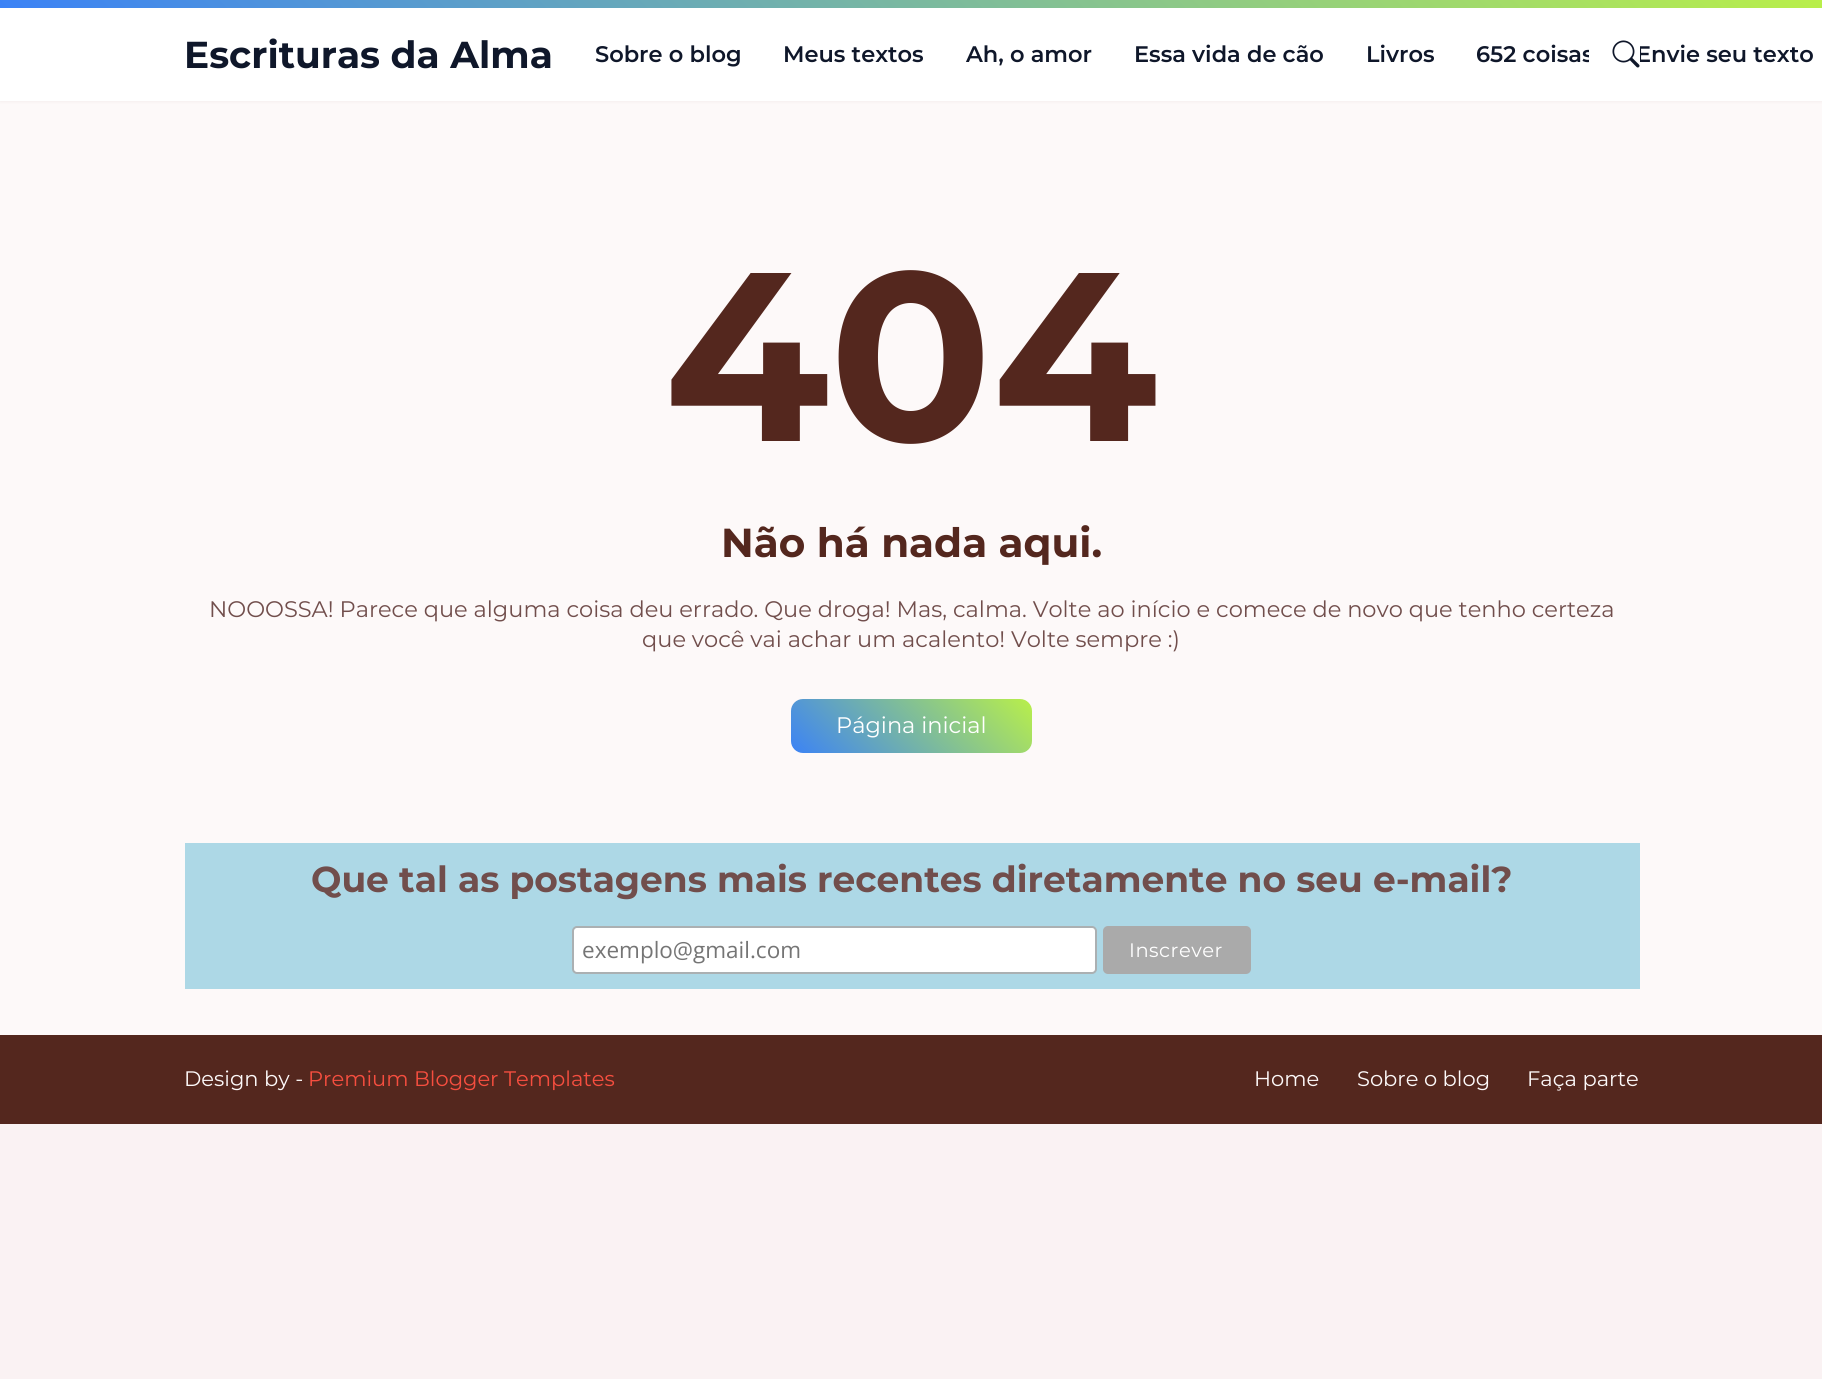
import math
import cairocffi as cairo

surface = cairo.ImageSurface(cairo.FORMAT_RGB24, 1822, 1379)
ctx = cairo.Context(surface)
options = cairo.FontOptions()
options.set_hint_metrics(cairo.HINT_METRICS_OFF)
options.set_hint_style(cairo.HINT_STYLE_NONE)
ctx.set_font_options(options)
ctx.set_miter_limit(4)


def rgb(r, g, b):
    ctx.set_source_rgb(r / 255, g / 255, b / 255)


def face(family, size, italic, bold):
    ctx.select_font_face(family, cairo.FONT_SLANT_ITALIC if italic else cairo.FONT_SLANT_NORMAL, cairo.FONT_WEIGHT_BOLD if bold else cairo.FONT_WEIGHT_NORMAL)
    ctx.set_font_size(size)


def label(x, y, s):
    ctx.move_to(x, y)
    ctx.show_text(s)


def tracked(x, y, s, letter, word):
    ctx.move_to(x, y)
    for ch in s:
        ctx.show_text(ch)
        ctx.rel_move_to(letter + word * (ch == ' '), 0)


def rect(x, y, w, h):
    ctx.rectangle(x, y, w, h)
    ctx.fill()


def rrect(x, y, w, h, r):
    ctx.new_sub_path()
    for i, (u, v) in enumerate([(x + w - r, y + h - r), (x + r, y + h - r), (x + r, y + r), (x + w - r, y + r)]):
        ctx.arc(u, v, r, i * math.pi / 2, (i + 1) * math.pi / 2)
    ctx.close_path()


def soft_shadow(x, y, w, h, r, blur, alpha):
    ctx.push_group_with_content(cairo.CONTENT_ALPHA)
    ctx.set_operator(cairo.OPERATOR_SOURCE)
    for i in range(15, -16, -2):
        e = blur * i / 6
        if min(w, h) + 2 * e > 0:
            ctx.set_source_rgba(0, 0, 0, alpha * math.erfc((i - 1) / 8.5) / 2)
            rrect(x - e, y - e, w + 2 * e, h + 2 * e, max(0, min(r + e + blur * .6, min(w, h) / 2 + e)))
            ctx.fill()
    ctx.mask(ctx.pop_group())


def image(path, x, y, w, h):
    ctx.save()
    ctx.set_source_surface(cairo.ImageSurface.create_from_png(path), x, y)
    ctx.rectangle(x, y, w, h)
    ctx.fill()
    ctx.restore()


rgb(250, 242, 243)
ctx.paint()
rgb(253, 249, 249)
rect(0, 101, 1822, 934)
rgb(84, 39, 30)
soft_shadow(0, 2, 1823, 100, 0, 1.5, 0.05)
gradient = cairo.LinearGradient(454, 461, 1369, -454)
gradient.add_color_stop_rgba(0, 0.231, 0.51, 0.965, 1)
gradient.add_color_stop_rgba(1, 0.725, 0.937, 0.29, 1)
ctx.set_source(gradient)
rect(0, 0, 1822, 8)
rgb(255, 255, 255)
rect(0, 8, 1822, 93)
face('Montserrat', 37.5, 0, 1)
rgb(15, 23, 42)
label(184, 68, 'Escrituras da Alma')
face('Montserrat SemiBold', 22.5, 0, 0)
label(595, 62, 'Sobre o blog')
label(783, 62, 'Meus textos')
label(966, 62, 'Ah, o amor')
label(1134, 62, 'Essa vida de cão')
label(1366, 62, 'Livros')
label(1476, 62, '652 coisas')
label(1636, 62, 'Envie seu texto')
rgb(255, 255, 255)
rect(1589, 46, 51, 17)
image('image0.png', 1612, 40, 28, 28)
face('Montserrat', 240, 0, 1)
rgb(84, 39, 30)
label(664, 441, '404')
face('Montserrat', 40.5, 0, 1)
label(721, 557, 'Não há nada aqui.')
face('Montserrat', 22.5, 0, 0)
rgb(113, 78, 76)
label(209, 617, 'NOOOSSA! Parece que alguma coisa deu errado. Que droga! Mas, calma. Volte ao início e comece de novo que tenho certeza')
label(642, 647, 'que você vai achar um acalento! Volte sempre :)')
gradient = cairo.LinearGradient(837, 800, 985, 652)
gradient.add_color_stop_rgba(0, 0.231, 0.51, 0.965, 1)
gradient.add_color_stop_rgba(1, 0.725, 0.937, 0.29, 1)
ctx.set_source(gradient)
rrect(791, 699, 241, 54, 12)
ctx.fill()
rgb(255, 255, 255)
label(836, 733, 'Página inicial')
rgb(173, 216, 230)
rect(185, 843, 1455, 146)
face('Montserrat', 36, 0, 1)
rgb(113, 78, 76)
label(311, 892, 'Que tal as postagens mais recentes diretamente no seu e-mail?')
rgb(255, 255, 255)
rrect(573, 927, 523, 46, 4)
ctx.fill_preserve()
rgb(171, 176, 178)
ctx.stroke()
face('Open Sans', 22.5, 0, 0)
rgb(117, 117, 117)
label(582, 958, 'exemplo@gmail.com')
rgb(170, 170, 170)
rrect(1103, 926, 148, 48, 5)
ctx.fill()
face('Montserrat', 19.5, 0, 0)
rgb(255, 255, 255)
tracked(1129, 957, 'Inscrever', 0.5, 0)
rgb(84, 39, 30)
rect(0, 1035, 1822, 89)
face('Montserrat', 21, 0, 0)
rgb(253, 249, 249)
label(184, 1086, 'Design by -')
rgb(246, 78, 63)
label(308, 1086, 'Premium Blogger Templates')
rgb(253, 249, 249)
label(1254, 1086, 'Home')
label(1357, 1086, 'Sobre o blog')
label(1527, 1086, 'Faça parte')
surface.write_to_png('render.png')
